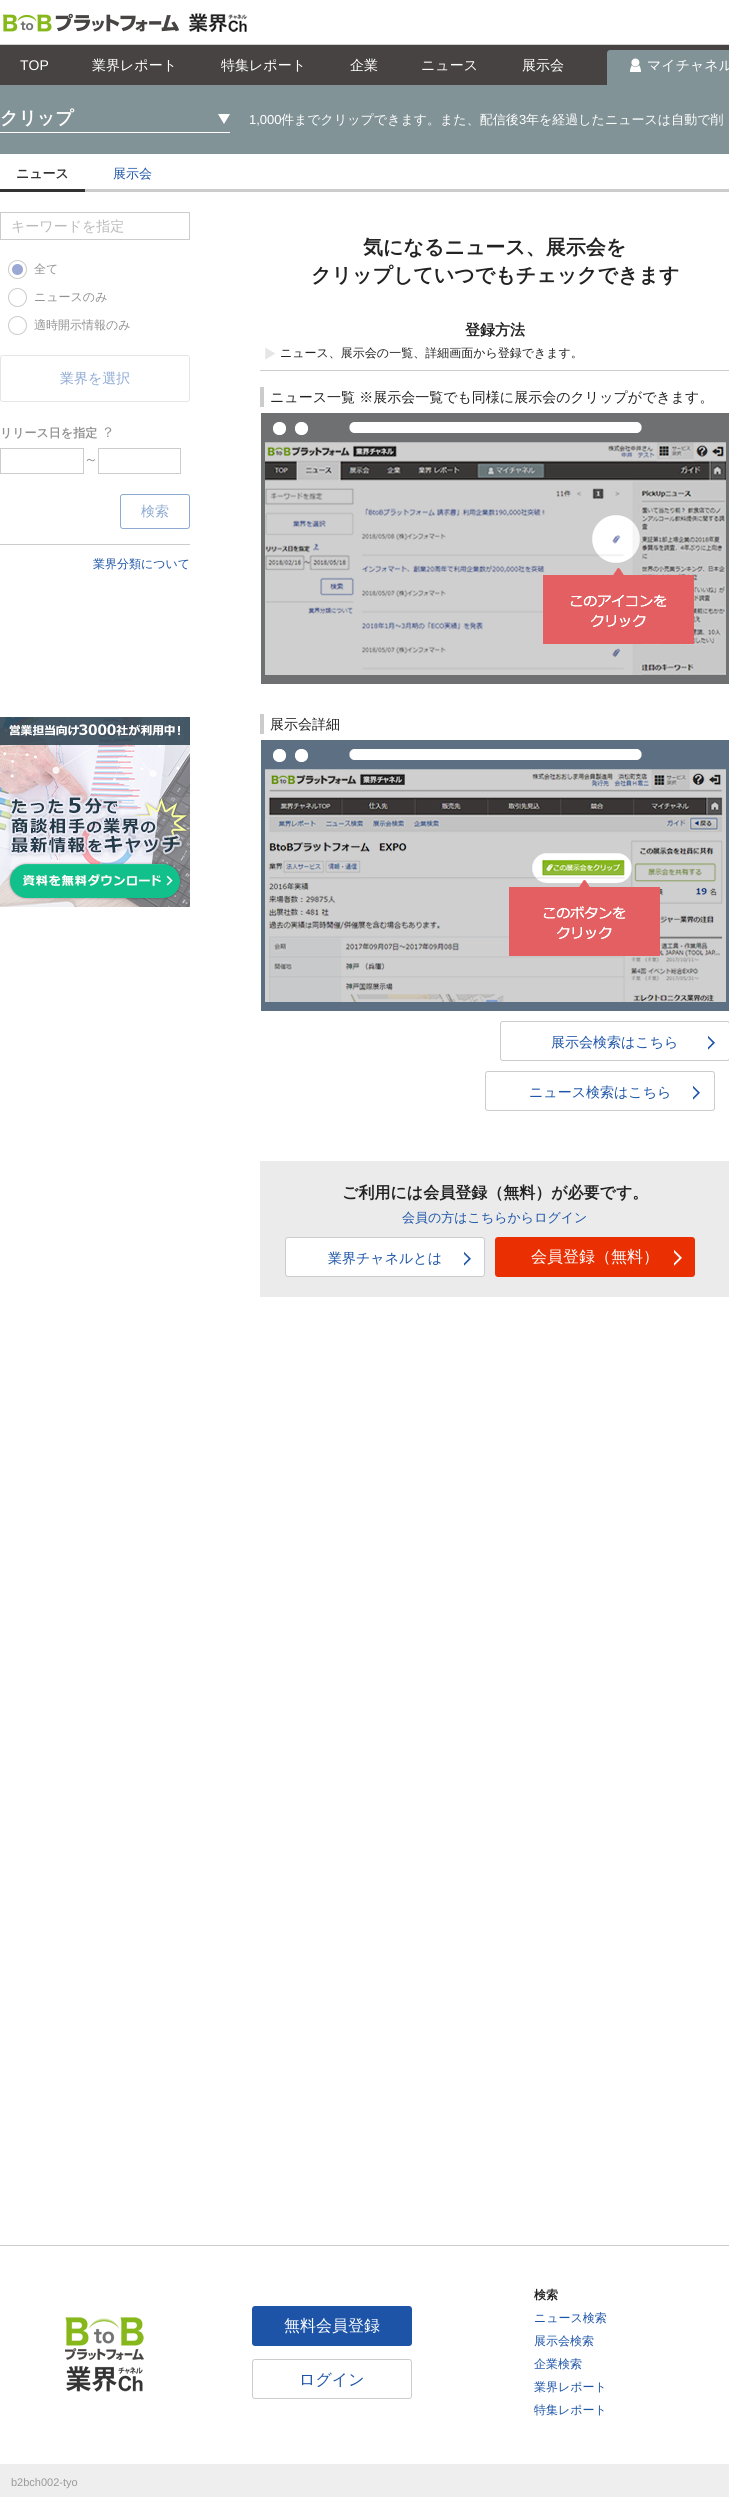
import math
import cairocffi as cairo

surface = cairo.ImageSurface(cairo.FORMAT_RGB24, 729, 2499)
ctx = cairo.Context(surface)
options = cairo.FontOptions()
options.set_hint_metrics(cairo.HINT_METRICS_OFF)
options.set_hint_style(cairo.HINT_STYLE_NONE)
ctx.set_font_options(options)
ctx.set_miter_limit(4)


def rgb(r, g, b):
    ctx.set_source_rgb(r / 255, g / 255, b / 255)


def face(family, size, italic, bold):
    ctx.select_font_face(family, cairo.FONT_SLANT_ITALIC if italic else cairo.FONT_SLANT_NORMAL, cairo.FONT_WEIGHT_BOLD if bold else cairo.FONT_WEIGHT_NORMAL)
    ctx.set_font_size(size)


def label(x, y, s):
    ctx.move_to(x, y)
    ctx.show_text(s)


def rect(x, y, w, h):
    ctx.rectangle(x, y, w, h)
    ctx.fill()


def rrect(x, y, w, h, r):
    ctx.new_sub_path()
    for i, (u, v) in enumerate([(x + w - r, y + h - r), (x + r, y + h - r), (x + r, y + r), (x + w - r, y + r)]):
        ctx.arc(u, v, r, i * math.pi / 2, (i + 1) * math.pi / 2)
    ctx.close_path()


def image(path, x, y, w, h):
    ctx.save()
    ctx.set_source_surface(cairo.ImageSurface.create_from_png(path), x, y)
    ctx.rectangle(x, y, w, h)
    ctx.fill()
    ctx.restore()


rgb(255, 255, 255)
ctx.paint()
rgb(210, 210, 210)
rect(0, 44, 729, 1)
image('image0.png', 3, 13, 245, 19)
rgb(71, 67, 66)
rect(0, 45, 729, 40)
face('Liberation Sans', 14, 0, 0)
rgb(255, 255, 255)
label(20, 70, 'TOP')
face('WenQuanYi Zen Hei Medium', 14, 0, 0)
label(92, 70, '業界レポート')
label(221, 70, '特集レポート')
label(350, 70, '企業')
label(421, 70, 'ニュース')
label(522, 70, '展示会')
rgb(130, 147, 151)
ctx.new_path()
ctx.move_to(610, 50)
ctx.line_to(729, 50)
ctx.curve_to(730.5, 50, 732, 51.5, 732, 53)
ctx.line_to(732, 85)
ctx.line_to(607, 85)
ctx.line_to(607, 53)
ctx.curve_to(607, 51.5, 608.5, 50, 610, 50)
ctx.close_path()
ctx.fill()
image('image1.png', 630, 58, 11, 14)
rgb(255, 255, 255)
label(647, 70, 'マイチャネル')
rgb(130, 147, 151)
rect(0, 85, 729, 69)
rgb(255, 255, 255)
ctx.new_path()
ctx.move_to(230, 114)
ctx.line_to(224, 124)
ctx.line_to(218, 114)
ctx.close_path()
ctx.fill()
rect(0, 132, 230, 1)
face('WenQuanYi Zen Hei', 18, 0, 1)
label(0, 124, 'クリップ')
face('Liberation Sans', 13, 0, 0)
label(249, 124, '1,000')
face('WenQuanYi Zen Hei Medium', 13, 0, 0)
label(281, 124, '件までクリップできます。また、配信後')
face('Liberation Sans', 13, 0, 0)
label(519, 124, '3')
face('WenQuanYi Zen Hei Medium', 13, 0, 0)
label(526, 124, '年を経過したニュースは自動で削')
rgb(204, 204, 204)
rect(85, 189, 644, 3)
rgb(51, 51, 51)
rect(0, 189, 85, 3)
face('WenQuanYi Zen Hei', 13, 0, 1)
label(16, 178, 'ニュース')
face('WenQuanYi Zen Hei Medium', 13, 0, 0)
rgb(29, 84, 167)
label(113, 178, '展示会')
ctx.rectangle(0.5, 212.5, 189, 27)
rgb(204, 204, 204)
ctx.set_line_width(1)
ctx.stroke()
face('WenQuanYi Zen Hei Medium', 14, 0, 0)
rgb(186, 186, 186)
label(11, 231, 'キーワードを指定')
rgb(154, 168, 211)
ctx.new_path()
ctx.arc(17.5, 269.5, 5.5, 0, 2 * math.pi)
ctx.fill()
ctx.arc(17.5, 269.5, 9, 0, 2 * math.pi)
rgb(204, 204, 204)
ctx.stroke()
face('WenQuanYi Zen Hei Medium', 12, 0, 0)
rgb(145, 145, 145)
label(34, 273, '全て')
ctx.new_path()
ctx.arc(17.5, 297.5, 9, 0, 2 * math.pi)
rgb(204, 204, 204)
ctx.stroke()
rgb(145, 145, 145)
label(34, 301, 'ニュースのみ')
ctx.new_path()
ctx.arc(17.5, 325.5, 9, 0, 2 * math.pi)
rgb(204, 204, 204)
ctx.stroke()
rgb(145, 145, 145)
label(34, 329, '適時開示情報のみ')
rrect(0.5, 355.5, 189, 46, 2.5)
rgb(230, 230, 230)
ctx.stroke()
face('WenQuanYi Zen Hei Medium', 14, 0, 0)
rgb(142, 170, 211)
label(60, 383, '業界を選択')
face('WenQuanYi Zen Hei', 12, 0, 1)
rgb(145, 145, 145)
label(0, 437, 'リリース日を指定')
face('WenQuanYi Zen Hei Medium', 14, 0, 0)
label(101, 437, '？')
ctx.rectangle(0.5, 448.5, 83, 25)
rgb(204, 204, 204)
ctx.stroke()
rgb(145, 145, 145)
label(84, 464, '～')
ctx.rectangle(98.5, 448.5, 82, 25)
rgb(204, 204, 204)
ctx.stroke()
rrect(120.5, 494.5, 69, 34, 2.5)
rgb(142, 170, 211)
ctx.stroke()
label(141, 516, '検索')
rgb(204, 204, 204)
rect(0, 544, 190, 1)
face('WenQuanYi Zen Hei Medium', 12, 0, 0)
rgb(29, 84, 167)
label(93, 568, '業界分類について')
image('image2.png', 0, 717, 190, 190)
face('WenQuanYi Zen Hei', 20, 0, 1)
rgb(34, 34, 34)
label(363, 254, '気になるニュース、展示会を')
label(311, 282, 'クリップしていつでもチェックできます')
face('WenQuanYi Zen Hei', 15, 0, 1)
label(465, 335, '登録方法')
image('image3.png', 265, 347, 11, 13)
face('WenQuanYi Zen Hei Medium', 12, 0, 0)
label(280, 357, 'ニュース、展示会の一覧、詳細画面から登録できます。')
rgb(204, 204, 204)
rect(260, 370, 469, 1)
rect(260, 387, 4, 20)
face('WenQuanYi Zen Hei Medium', 14, 0, 0)
rgb(34, 34, 34)
label(270, 402, 'ニュース一覧 ※展示会一覧でも同様に展示会のクリップができます。')
image('image4.png', 261, 413, 468, 271)
rgb(204, 204, 204)
rect(260, 714, 4, 20)
rgb(34, 34, 34)
label(270, 729, '展示会詳細')
image('image5.png', 261, 740, 468, 271)
rrect(500.5, 1021.5, 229, 39, 2.5)
rgb(204, 204, 204)
ctx.stroke()
rgb(29, 84, 167)
label(551, 1047, '展示会検索はこちら')
image('image6.png', 708, 1035, 7, 15)
rrect(485.5, 1071.5, 229, 39, 2.5)
rgb(204, 204, 204)
ctx.stroke()
rgb(29, 84, 167)
label(529, 1097, 'ニュース検索はこちら')
image('image6.png', 693, 1085, 7, 15)
rgb(235, 235, 235)
rect(260, 1161, 469, 136)
face('WenQuanYi Zen Hei', 16, 0, 1)
rgb(34, 34, 34)
label(342, 1198, 'ご利用には会員登録（無料）が必要です。')
face('WenQuanYi Zen Hei Medium', 13, 0, 0)
rgb(29, 84, 167)
label(402, 1222, '会員の方はこちらからログイン')
rgb(255, 255, 255)
rrect(285.5, 1237.5, 199, 39, 2.5)
ctx.fill_preserve()
rgb(204, 204, 204)
ctx.stroke()
face('WenQuanYi Zen Hei Medium', 14, 0, 0)
rgb(29, 84, 167)
label(328, 1263, '業界チャネルとは')
image('image6.png', 464, 1251, 7, 15)
rgb(234, 48, 2)
rrect(495, 1237, 200, 40, 3)
ctx.fill()
face('WenQuanYi Zen Hei Medium', 16, 0, 0)
rgb(255, 255, 255)
label(531, 1262, '会員登録（無料）')
image('image7.png', 674, 1250, 8, 16)
rgb(238, 238, 238)
rect(0, 2464, 729, 33)
rgb(204, 204, 204)
rect(0, 2245, 729, 1)
image('image8.png', 65, 2317, 79, 75)
rgb(29, 84, 167)
rrect(252, 2306, 160, 40, 3)
ctx.fill()
rgb(255, 255, 255)
label(284, 2331, '無料会員登録')
rrect(252.5, 2359.5, 159, 39, 2.5)
rgb(204, 204, 204)
ctx.stroke()
rgb(29, 84, 167)
label(299, 2385, 'ログイン')
face('WenQuanYi Zen Hei', 12, 0, 1)
rgb(34, 34, 34)
label(534, 2299, '検索')
face('WenQuanYi Zen Hei Medium', 12, 0, 0)
rgb(29, 84, 167)
label(534, 2322, 'ニュース検索')
label(534, 2345, '展示会検索')
label(534, 2368, '企業検索')
label(534, 2391, '業界レポート')
label(534, 2414, '特集レポート')
face('Liberation Sans', 11, 0, 0)
rgb(153, 153, 153)
label(11, 2486, 'b2bch002-tyo')
surface.write_to_png('render.png')
